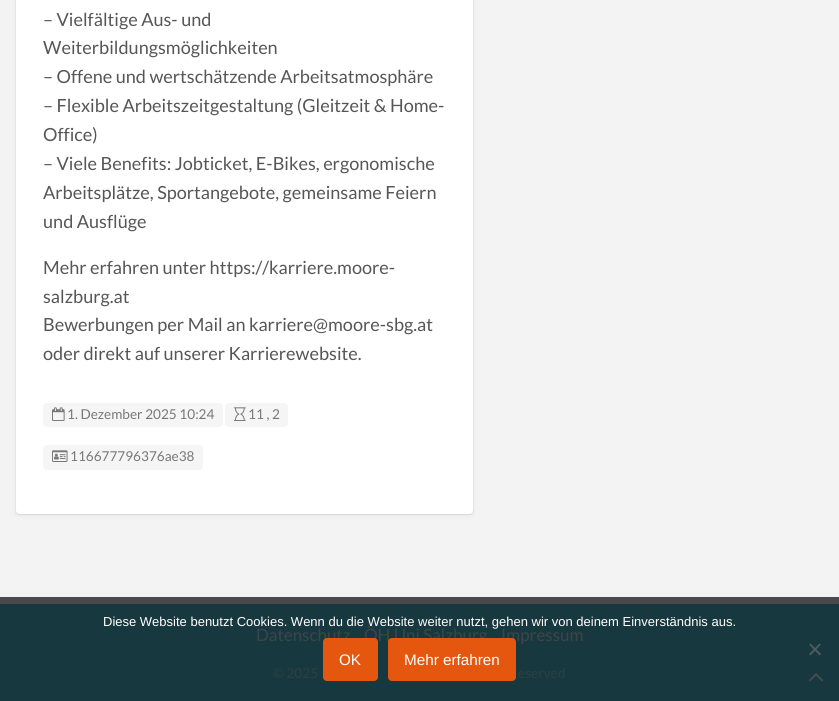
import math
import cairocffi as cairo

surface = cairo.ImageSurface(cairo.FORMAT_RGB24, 839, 701)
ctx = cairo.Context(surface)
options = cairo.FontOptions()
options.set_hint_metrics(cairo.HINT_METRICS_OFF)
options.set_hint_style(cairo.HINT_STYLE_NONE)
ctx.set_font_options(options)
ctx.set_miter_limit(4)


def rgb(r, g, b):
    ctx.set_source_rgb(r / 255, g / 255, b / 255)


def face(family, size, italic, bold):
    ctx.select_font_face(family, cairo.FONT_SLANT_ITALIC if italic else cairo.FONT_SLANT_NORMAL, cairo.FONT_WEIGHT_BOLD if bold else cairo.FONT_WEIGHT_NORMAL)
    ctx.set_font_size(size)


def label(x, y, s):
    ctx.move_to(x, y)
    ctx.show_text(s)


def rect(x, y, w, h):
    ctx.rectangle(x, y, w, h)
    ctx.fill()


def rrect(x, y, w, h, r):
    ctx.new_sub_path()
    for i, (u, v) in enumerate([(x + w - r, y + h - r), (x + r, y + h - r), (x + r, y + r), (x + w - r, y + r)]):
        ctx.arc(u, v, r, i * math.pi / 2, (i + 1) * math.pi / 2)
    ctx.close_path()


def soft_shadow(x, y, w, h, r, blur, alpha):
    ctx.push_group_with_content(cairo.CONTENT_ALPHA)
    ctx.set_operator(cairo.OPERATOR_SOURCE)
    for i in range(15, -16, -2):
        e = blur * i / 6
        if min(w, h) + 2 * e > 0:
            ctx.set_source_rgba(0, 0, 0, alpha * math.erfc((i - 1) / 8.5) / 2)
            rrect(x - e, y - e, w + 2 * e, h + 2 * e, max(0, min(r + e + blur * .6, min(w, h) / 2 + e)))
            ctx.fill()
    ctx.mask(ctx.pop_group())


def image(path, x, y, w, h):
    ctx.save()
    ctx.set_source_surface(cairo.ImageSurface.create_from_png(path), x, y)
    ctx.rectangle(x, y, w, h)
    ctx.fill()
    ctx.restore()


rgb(243, 243, 244)
ctx.paint()
rgb(73, 73, 73)
rect(0, 597, 839, 7)
rgb(0, 0, 0)
soft_shadow(16, -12, 457, 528, 4, 2.5, 0.05)
soft_shadow(16, -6, 457, 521, 4, 0.5, 0.05)
ctx.rectangle(15.5, -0.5, 458, 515)
ctx.set_source_rgba(0, 0, 0, 0.03)
ctx.set_line_width(1)
ctx.stroke()
rgb(255, 255, 255)
rrect(16, -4, 457, 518, 4)
ctx.fill()
face('Lato', 18.1, 0, 0)
rgb(86, 86, 86)
label(43, 26, '– Vielfältige Aus- und')
label(43, 54, 'Weiterbildungsmöglichkeiten')
label(43, 83, '– Offene und wertschätzende Arbeitsatmosphäre')
label(43, 112, '– Flexible Arbeitszeitgestaltung (Gleitzeit & Home-')
label(43, 141, 'Office)')
label(43, 170, '– Viele Benefits: Jobticket, E-Bikes, ergonomische')
label(43, 199, 'Arbeitsplätze, Sportangebote, gemeinsame Feiern')
label(43, 228, 'und Ausflüge')
label(43, 274, 'Mehr erfahren unter https://karriere.moore-')
label(43, 303, 'salzburg.at')
label(43, 331, 'Bewerbungen per Mail an karriere@moore-sbg.at')
label(43, 360, 'oder direkt auf unserer Karrierewebsite.')
rgb(245, 245, 245)
rrect(43, 403, 180, 24, 4)
ctx.fill()
image('image0.png', 52, 407, 13, 14)
face('Lato', 13.6, 0, 0)
rgb(119, 119, 119)
label(67, 419, '1. Dezember 2025 10:24')
rgb(245, 245, 245)
rrect(225, 403, 63, 24, 4)
ctx.fill()
image('image1.png', 234, 407, 12, 14)
rgb(119, 119, 119)
label(248, 419, '11 , 2')
rgb(245, 245, 245)
rrect(43, 445, 160, 25, 4)
ctx.fill()
image('image2.png', 52, 450, 16, 12)
rgb(119, 119, 119)
label(70, 461, '116677796376ae38')
rgb(24, 56, 63)
rect(0, 604, 839, 97)
face('Lato', 17, 0, 0)
rgb(60, 69, 71)
label(256, 641, 'Datenschutz')
label(364, 641, 'ÖH Uni Salzburg')
label(501, 641, 'Impressum')
face('Lato', 13.6, 0, 0)
rgb(44, 63, 68)
label(273, 678, '© 2025')
label(518, 678, 'eserved')
face('Liberation Sans', 13, 0, 0)
rgb(255, 255, 255)
label(103, 626, 'Diese Website benutzt Cookies. Wenn du die Website weiter nutzt, gehen wir von deinem Einverständnis aus.')
rgb(76, 92, 95)
ctx.new_path()
ctx.move_to(819.5, 643.5)
ctx.line_to(821, 644.5)
ctx.line_to(810.5, 655.5)
ctx.line_to(809, 654)
ctx.close_path()
ctx.fill()
ctx.new_path()
ctx.move_to(809, 644.5)
ctx.line_to(810.5, 643.5)
ctx.line_to(821, 654)
ctx.line_to(819.5, 655.5)
ctx.close_path()
ctx.fill()
rgb(229, 87, 14)
rrect(323, 638, 55, 43, 4)
ctx.fill()
face('Liberation Sans', 15.25, 0, 0)
rgb(255, 255, 255)
label(339, 665, 'OK')
rgb(229, 87, 14)
rrect(388, 638, 128, 43, 4)
ctx.fill()
rgb(255, 255, 255)
label(404, 665, 'Mehr erfahren')
image('image3.png', 809, 673, 14, 9)
surface.write_to_png('render.png')
